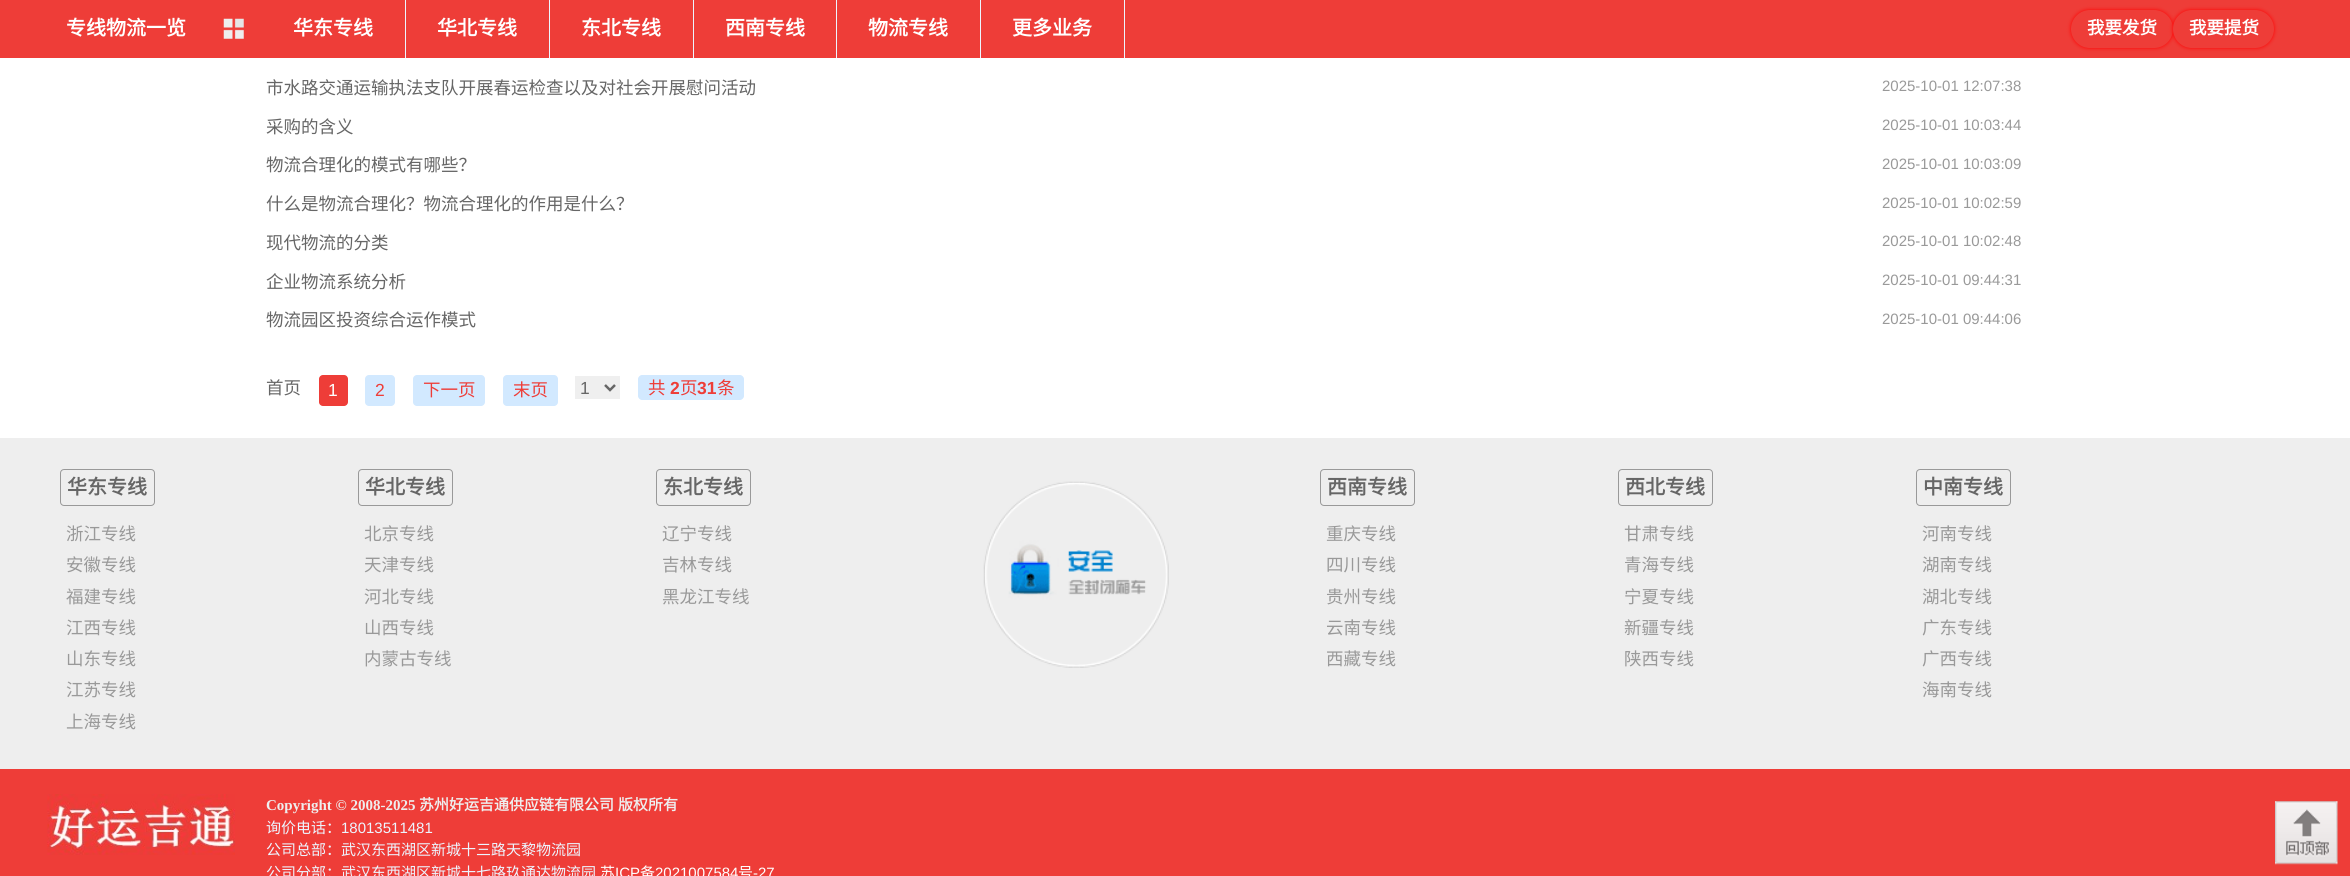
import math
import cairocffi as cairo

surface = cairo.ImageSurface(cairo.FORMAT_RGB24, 2350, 876)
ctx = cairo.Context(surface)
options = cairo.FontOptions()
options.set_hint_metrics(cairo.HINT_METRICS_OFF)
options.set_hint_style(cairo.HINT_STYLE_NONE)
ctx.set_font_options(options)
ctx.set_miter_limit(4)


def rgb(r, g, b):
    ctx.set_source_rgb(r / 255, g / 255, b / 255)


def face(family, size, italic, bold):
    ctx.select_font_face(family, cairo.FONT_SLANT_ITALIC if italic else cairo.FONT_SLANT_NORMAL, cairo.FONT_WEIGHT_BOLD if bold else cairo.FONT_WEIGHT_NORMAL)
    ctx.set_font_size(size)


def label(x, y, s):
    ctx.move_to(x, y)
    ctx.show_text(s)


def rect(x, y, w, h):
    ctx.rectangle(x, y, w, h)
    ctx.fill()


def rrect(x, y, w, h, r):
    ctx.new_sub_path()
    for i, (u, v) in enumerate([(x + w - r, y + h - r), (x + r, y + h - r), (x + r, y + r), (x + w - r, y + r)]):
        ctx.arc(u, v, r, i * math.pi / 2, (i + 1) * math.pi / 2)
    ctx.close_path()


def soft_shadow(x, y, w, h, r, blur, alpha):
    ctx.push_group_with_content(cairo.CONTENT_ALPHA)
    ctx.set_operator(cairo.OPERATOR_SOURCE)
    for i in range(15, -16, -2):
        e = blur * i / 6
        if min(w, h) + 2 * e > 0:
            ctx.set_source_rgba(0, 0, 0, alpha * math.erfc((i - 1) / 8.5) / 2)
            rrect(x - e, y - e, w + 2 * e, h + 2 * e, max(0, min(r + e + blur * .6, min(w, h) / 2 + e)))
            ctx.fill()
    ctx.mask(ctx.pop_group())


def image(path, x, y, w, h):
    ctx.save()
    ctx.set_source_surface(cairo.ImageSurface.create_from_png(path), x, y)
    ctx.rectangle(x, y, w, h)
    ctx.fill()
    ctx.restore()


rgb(255, 255, 255)
ctx.paint()
rgb(238, 61, 56)
rect(0, 0, 2350, 58)
face('Noto Sans CJK SC', 20, 0, 1)
rgb(255, 255, 255)
label(66, 35, '专线物流一览')
image('image0.png', 223, 18, 21, 21)
rgb(236, 245, 255)
rect(405, 0, 1, 58)
rgb(255, 255, 255)
label(293, 35, '华东专线')
rgb(236, 245, 255)
rect(549, 0, 1, 58)
rgb(255, 255, 255)
label(437, 35, '华北专线')
rgb(236, 245, 255)
rect(693, 0, 1, 58)
rgb(255, 255, 255)
label(581, 35, '东北专线')
rgb(236, 245, 255)
rect(836, 0, 1, 58)
rgb(255, 255, 255)
label(725, 35, '西南专线')
rgb(236, 245, 255)
rect(980, 0, 1, 58)
rgb(255, 255, 255)
label(868, 35, '物流专线')
rgb(236, 245, 255)
rect(1124, 0, 1, 58)
rgb(255, 255, 255)
label(1012, 35, '更多业务')
rgb(255, 0, 0)
soft_shadow(2071, 10, 102, 38, 19, 2, 1)
rgb(238, 61, 56)
rrect(2071, 10, 102, 38, 19)
ctx.fill()
face('Noto Sans CJK SC', 17.5, 0, 1)
rgb(255, 255, 255)
label(2087, 34, '我要发货')
rgb(255, 0, 0)
soft_shadow(2173, 10, 101, 38, 19, 2, 1)
rgb(238, 61, 56)
rrect(2173, 10, 101, 38, 19)
ctx.fill()
rgb(255, 255, 255)
label(2189, 34, '我要提货')
face('Noto Sans CJK SC', 17.5, 0, 0)
rgb(102, 102, 102)
label(266, 94, '市水路交通运输执法支队开展春运检查以及对社会开展慰问活动')
face('Liberation Sans', 15, 0, 0)
rgb(153, 153, 153)
label(1882, 91, '2025-10-01 12:07:38')
face('Noto Sans CJK SC', 17.5, 0, 0)
rgb(102, 102, 102)
label(266, 133, '采购的含义')
face('Liberation Sans', 15, 0, 0)
rgb(153, 153, 153)
label(1882, 130, '2025-10-01 10:03:44')
face('Noto Sans CJK SC', 17.5, 0, 0)
rgb(102, 102, 102)
label(266, 171, '物流合理化的模式有哪些？')
face('Liberation Sans', 15, 0, 0)
rgb(153, 153, 153)
label(1882, 169, '2025-10-01 10:03:09')
face('Noto Sans CJK SC', 17.5, 0, 0)
rgb(102, 102, 102)
label(266, 210, '什么是物流合理化？物流合理化的作用是什么？')
face('Liberation Sans', 15, 0, 0)
rgb(153, 153, 153)
label(1882, 208, '2025-10-01 10:02:59')
face('Noto Sans CJK SC', 17.5, 0, 0)
rgb(102, 102, 102)
label(266, 249, '现代物流的分类')
face('Liberation Sans', 15, 0, 0)
rgb(153, 153, 153)
label(1882, 246, '2025-10-01 10:02:48')
face('Noto Sans CJK SC', 17.5, 0, 0)
rgb(102, 102, 102)
label(266, 288, '企业物流系统分析')
face('Liberation Sans', 15, 0, 0)
rgb(153, 153, 153)
label(1882, 285, '2025-10-01 09:44:31')
face('Noto Sans CJK SC', 17.5, 0, 0)
rgb(102, 102, 102)
label(266, 326, '物流园区投资综合运作模式')
face('Liberation Sans', 15, 0, 0)
rgb(153, 153, 153)
label(1882, 324, '2025-10-01 09:44:06')
face('Noto Sans CJK SC', 17.5, 0, 0)
rgb(102, 102, 102)
label(266, 394, '首页')
rgb(238, 61, 56)
rrect(319, 375, 29, 31, 4)
ctx.fill()
face('Liberation Sans', 17.5, 0, 0)
rgb(255, 255, 255)
label(328, 396, '1')
rgb(210, 233, 255)
rrect(365, 375, 30, 31, 4)
ctx.fill()
rgb(238, 61, 56)
label(375, 396, '2')
rgb(210, 233, 255)
rrect(413, 375, 72, 31, 4)
ctx.fill()
face('Noto Sans CJK SC', 17.5, 0, 0)
rgb(238, 61, 56)
label(423, 396, '下一页')
rgb(210, 233, 255)
rrect(503, 375, 55, 31, 4)
ctx.fill()
rgb(238, 61, 56)
label(513, 396, '末页')
rgb(239, 239, 239)
rect(575, 376, 45, 23)
ctx.new_path()
ctx.move_to(605, 385)
ctx.line_to(610, 390)
ctx.line_to(615, 385)
rgb(102, 102, 102)
ctx.set_line_width(2.5)
ctx.stroke()
face('Liberation Sans', 17.5, 0, 0)
label(580, 394, '1')
rgb(210, 233, 255)
ctx.new_path()
ctx.move_to(642, 375)
ctx.line_to(670, 375)
ctx.line_to(670, 400)
ctx.line_to(642, 400)
ctx.curve_to(640, 400, 638, 398, 638, 396)
ctx.line_to(638, 379)
ctx.curve_to(638, 377, 640, 375, 642, 375)
ctx.close_path()
ctx.fill()
face('Noto Sans CJK SC', 17.5, 0, 0)
rgb(238, 61, 56)
label(648, 394, '共')
rgb(210, 233, 255)
rect(670, 375, 46, 25)
face('Liberation Sans', 17.5, 0, 1)
rgb(238, 61, 56)
label(670, 394, '2')
face('Noto Sans CJK SC', 17.5, 0, 0)
label(680, 394, '页')
rgb(210, 233, 255)
ctx.new_path()
ctx.move_to(716, 375)
ctx.line_to(740, 375)
ctx.curve_to(742, 375, 744, 377, 744, 379)
ctx.line_to(744, 396)
ctx.curve_to(744, 398, 742, 400, 740, 400)
ctx.line_to(716, 400)
ctx.close_path()
ctx.fill()
face('Liberation Sans', 17.5, 0, 1)
rgb(238, 61, 56)
label(697, 394, '31')
face('Noto Sans CJK SC', 17.5, 0, 0)
label(717, 394, '条')
rgb(238, 238, 238)
rect(0, 438, 2350, 331)
rrect(60.5, 469.5, 94, 36, 3.5)
rgb(153, 153, 153)
ctx.set_line_width(1)
ctx.stroke()
face('Noto Sans CJK SC', 20, 0, 1)
rgb(102, 102, 102)
label(67, 494, '华东专线')
face('Noto Sans CJK SC', 17.5, 0, 0)
rgb(153, 153, 153)
label(66, 540, '浙江专线')
label(66, 571, '安徽专线')
label(66, 603, '福建专线')
label(66, 634, '江西专线')
label(66, 665, '山东专线')
label(66, 696, '江苏专线')
label(66, 728, '上海专线')
rrect(358.5, 469.5, 94, 36, 3.5)
ctx.stroke()
face('Noto Sans CJK SC', 20, 0, 1)
rgb(102, 102, 102)
label(365, 494, '华北专线')
face('Noto Sans CJK SC', 17.5, 0, 0)
rgb(153, 153, 153)
label(364, 540, '北京专线')
label(364, 571, '天津专线')
label(364, 603, '河北专线')
label(364, 634, '山西专线')
label(364, 665, '内蒙古专线')
rrect(656.5, 469.5, 94, 36, 3.5)
ctx.stroke()
face('Noto Sans CJK SC', 20, 0, 1)
rgb(102, 102, 102)
label(663, 494, '东北专线')
face('Noto Sans CJK SC', 17.5, 0, 0)
rgb(153, 153, 153)
label(662, 540, '辽宁专线')
label(662, 571, '吉林专线')
label(662, 603, '黑龙江专线')
image('image1.png', 983, 481, 186, 187)
rrect(1320.5, 469.5, 94, 36, 3.5)
ctx.stroke()
face('Noto Sans CJK SC', 20, 0, 1)
rgb(102, 102, 102)
label(1327, 494, '西南专线')
face('Noto Sans CJK SC', 17.5, 0, 0)
rgb(153, 153, 153)
label(1326, 540, '重庆专线')
label(1326, 571, '四川专线')
label(1326, 603, '贵州专线')
label(1326, 634, '云南专线')
label(1326, 665, '西藏专线')
rrect(1618.5, 469.5, 94, 36, 3.5)
ctx.stroke()
face('Noto Sans CJK SC', 20, 0, 1)
rgb(102, 102, 102)
label(1625, 494, '西北专线')
face('Noto Sans CJK SC', 17.5, 0, 0)
rgb(153, 153, 153)
label(1624, 540, '甘肃专线')
label(1624, 571, '青海专线')
label(1624, 603, '宁夏专线')
label(1624, 634, '新疆专线')
label(1624, 665, '陕西专线')
rrect(1916.5, 469.5, 94, 36, 3.5)
ctx.stroke()
face('Noto Sans CJK SC', 20, 0, 1)
rgb(102, 102, 102)
label(1923, 494, '中南专线')
face('Noto Sans CJK SC', 17.5, 0, 0)
rgb(153, 153, 153)
label(1922, 540, '河南专线')
label(1922, 571, '湖南专线')
label(1922, 603, '湖北专线')
label(1922, 634, '广东专线')
label(1922, 665, '广西专线')
label(1922, 696, '海南专线')
rgb(238, 61, 56)
rect(0, 769, 2350, 107)
image('image2.png', 47, 794, 188, 61)
face('Liberation Serif', 15, 0, 1)
rgb(238, 238, 238)
label(266, 810, 'Copyright © 2008-2025')
face('Noto Sans CJK SC', 15, 0, 1)
label(419, 810, '苏州好运吉通供应链有限公司')
label(618, 810, '版权所有')
face('Noto Sans CJK SC', 15, 0, 0)
rgb(236, 245, 255)
label(266, 833, '询价电话：')
face('Liberation Sans', 15, 0, 0)
label(341, 833, '18013511481')
face('Noto Sans CJK SC', 15, 0, 0)
label(266, 855, '公司总部：武汉东西湖区新城十三路天黎物流园')
label(266, 878, '公司分部：武汉东西湖区新城十七路玖通达物流园')
rgb(255, 255, 255)
label(600, 878, '苏')
face('Liberation Sans', 15, 0, 0)
label(615, 878, 'ICP')
face('Noto Sans CJK SC', 15, 0, 0)
label(640, 878, '备')
face('Liberation Sans', 15, 0, 0)
label(655, 878, '2021007584')
face('Noto Sans CJK SC', 15, 0, 0)
label(738, 878, '号')
face('Liberation Sans', 15, 0, 0)
label(753, 878, '-27')
image('image3.png', 2275, 801, 63, 64)
surface.write_to_png('render.png')
